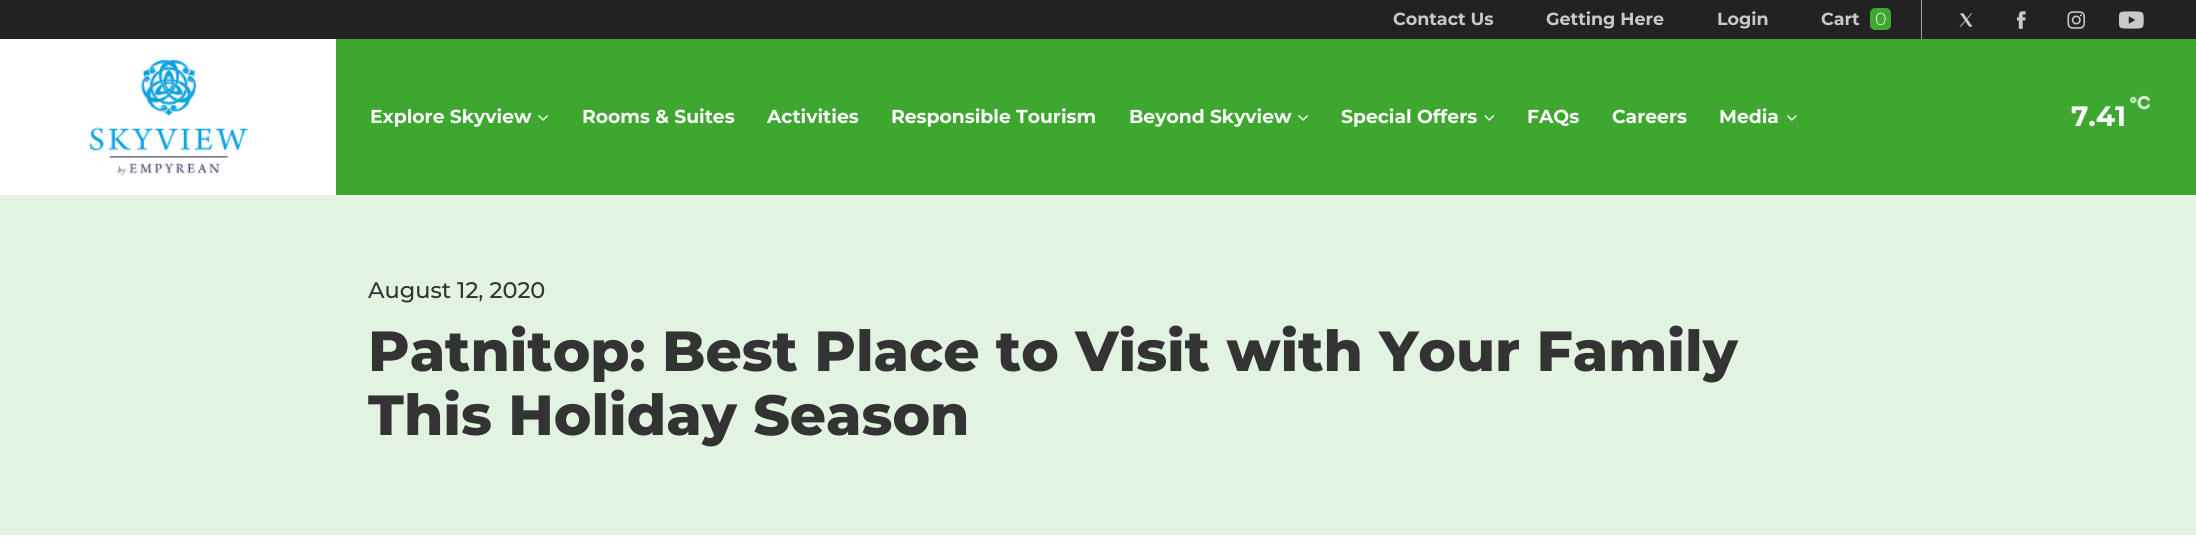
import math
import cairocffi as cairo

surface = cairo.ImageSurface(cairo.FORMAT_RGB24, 2196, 553)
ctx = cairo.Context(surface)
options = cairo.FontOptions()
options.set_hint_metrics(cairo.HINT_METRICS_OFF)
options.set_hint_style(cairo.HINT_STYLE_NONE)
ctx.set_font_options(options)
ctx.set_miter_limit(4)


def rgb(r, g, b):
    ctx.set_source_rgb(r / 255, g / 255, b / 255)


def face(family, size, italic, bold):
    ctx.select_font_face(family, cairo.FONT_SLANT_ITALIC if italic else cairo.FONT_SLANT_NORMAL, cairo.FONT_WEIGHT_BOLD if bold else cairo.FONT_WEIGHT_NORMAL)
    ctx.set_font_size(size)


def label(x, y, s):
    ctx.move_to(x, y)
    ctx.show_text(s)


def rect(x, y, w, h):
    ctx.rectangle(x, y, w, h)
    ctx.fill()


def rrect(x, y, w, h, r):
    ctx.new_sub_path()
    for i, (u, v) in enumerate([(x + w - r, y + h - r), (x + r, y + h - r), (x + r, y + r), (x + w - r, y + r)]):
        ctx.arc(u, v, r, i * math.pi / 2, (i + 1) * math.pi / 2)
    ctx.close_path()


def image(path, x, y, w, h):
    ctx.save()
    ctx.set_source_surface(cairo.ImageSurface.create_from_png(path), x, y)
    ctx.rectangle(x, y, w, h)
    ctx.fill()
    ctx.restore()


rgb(255, 255, 255)
ctx.paint()
rgb(34, 34, 34)
rect(0, 0, 2196, 39)
face('Montserrat', 17.5, 0, 1)
rgb(201, 201, 201)
label(1393, 25, 'Contact Us')
label(1546, 25, 'Getting Here')
label(1717, 25, 'Login')
label(1821, 25, 'Cart')
rgb(62, 167, 48)
rrect(1870, 8, 21, 22, 5)
ctx.fill()
face('Montserrat Light', 17.5, 0, 0)
rgb(248, 249, 250)
label(1875, 25, '0')
rgb(163, 163, 163)
rect(1921, 0, 1, 39)
image('image0.png', 1959, 13, 14, 14)
image('image1.png', 2016, 11, 10, 18)
image('image2.png', 2067, 11, 18, 18)
image('image3.png', 2119, 11, 25, 18)
rgb(62, 167, 48)
rect(336, 39, 1860, 156)
image('image4.png', 90, 59, 158, 116)
face('Montserrat', 18.75, 0, 1)
rgb(255, 255, 255)
label(370, 123, 'Explore Skyview')
image('image5.png', 538, 115, 10, 6)
label(582, 123, 'Rooms & Suites')
label(767, 123, 'Activities')
label(891, 123, 'Responsible Tourism')
label(1129, 123, 'Beyond Skyview')
image('image5.png', 1298, 115, 10, 6)
label(1341, 123, 'Special Offers')
image('image6.png', 1484, 115, 11, 6)
label(1527, 123, 'FAQs')
label(1612, 123, 'Careers')
label(1719, 123, 'Media')
image('image7.png', 1787, 115, 10, 6)
image('image8.png', 2130, 95, 20, 16)
face('Montserrat', 28, 0, 1)
label(2071, 126, '7.41')
rgb(227, 243, 225)
rect(0, 195, 2196, 340)
face('Montserrat Medium', 22.5, 0, 0)
rgb(51, 51, 51)
label(368, 298, 'August 12, 2020')
face('Montserrat ExtraBold', 56.5, 0, 0)
label(368, 371, 'Patnitop: Best Place to Visit with Your Family')
label(368, 435, 'This Holiday Season')
surface.write_to_png('render.png')
